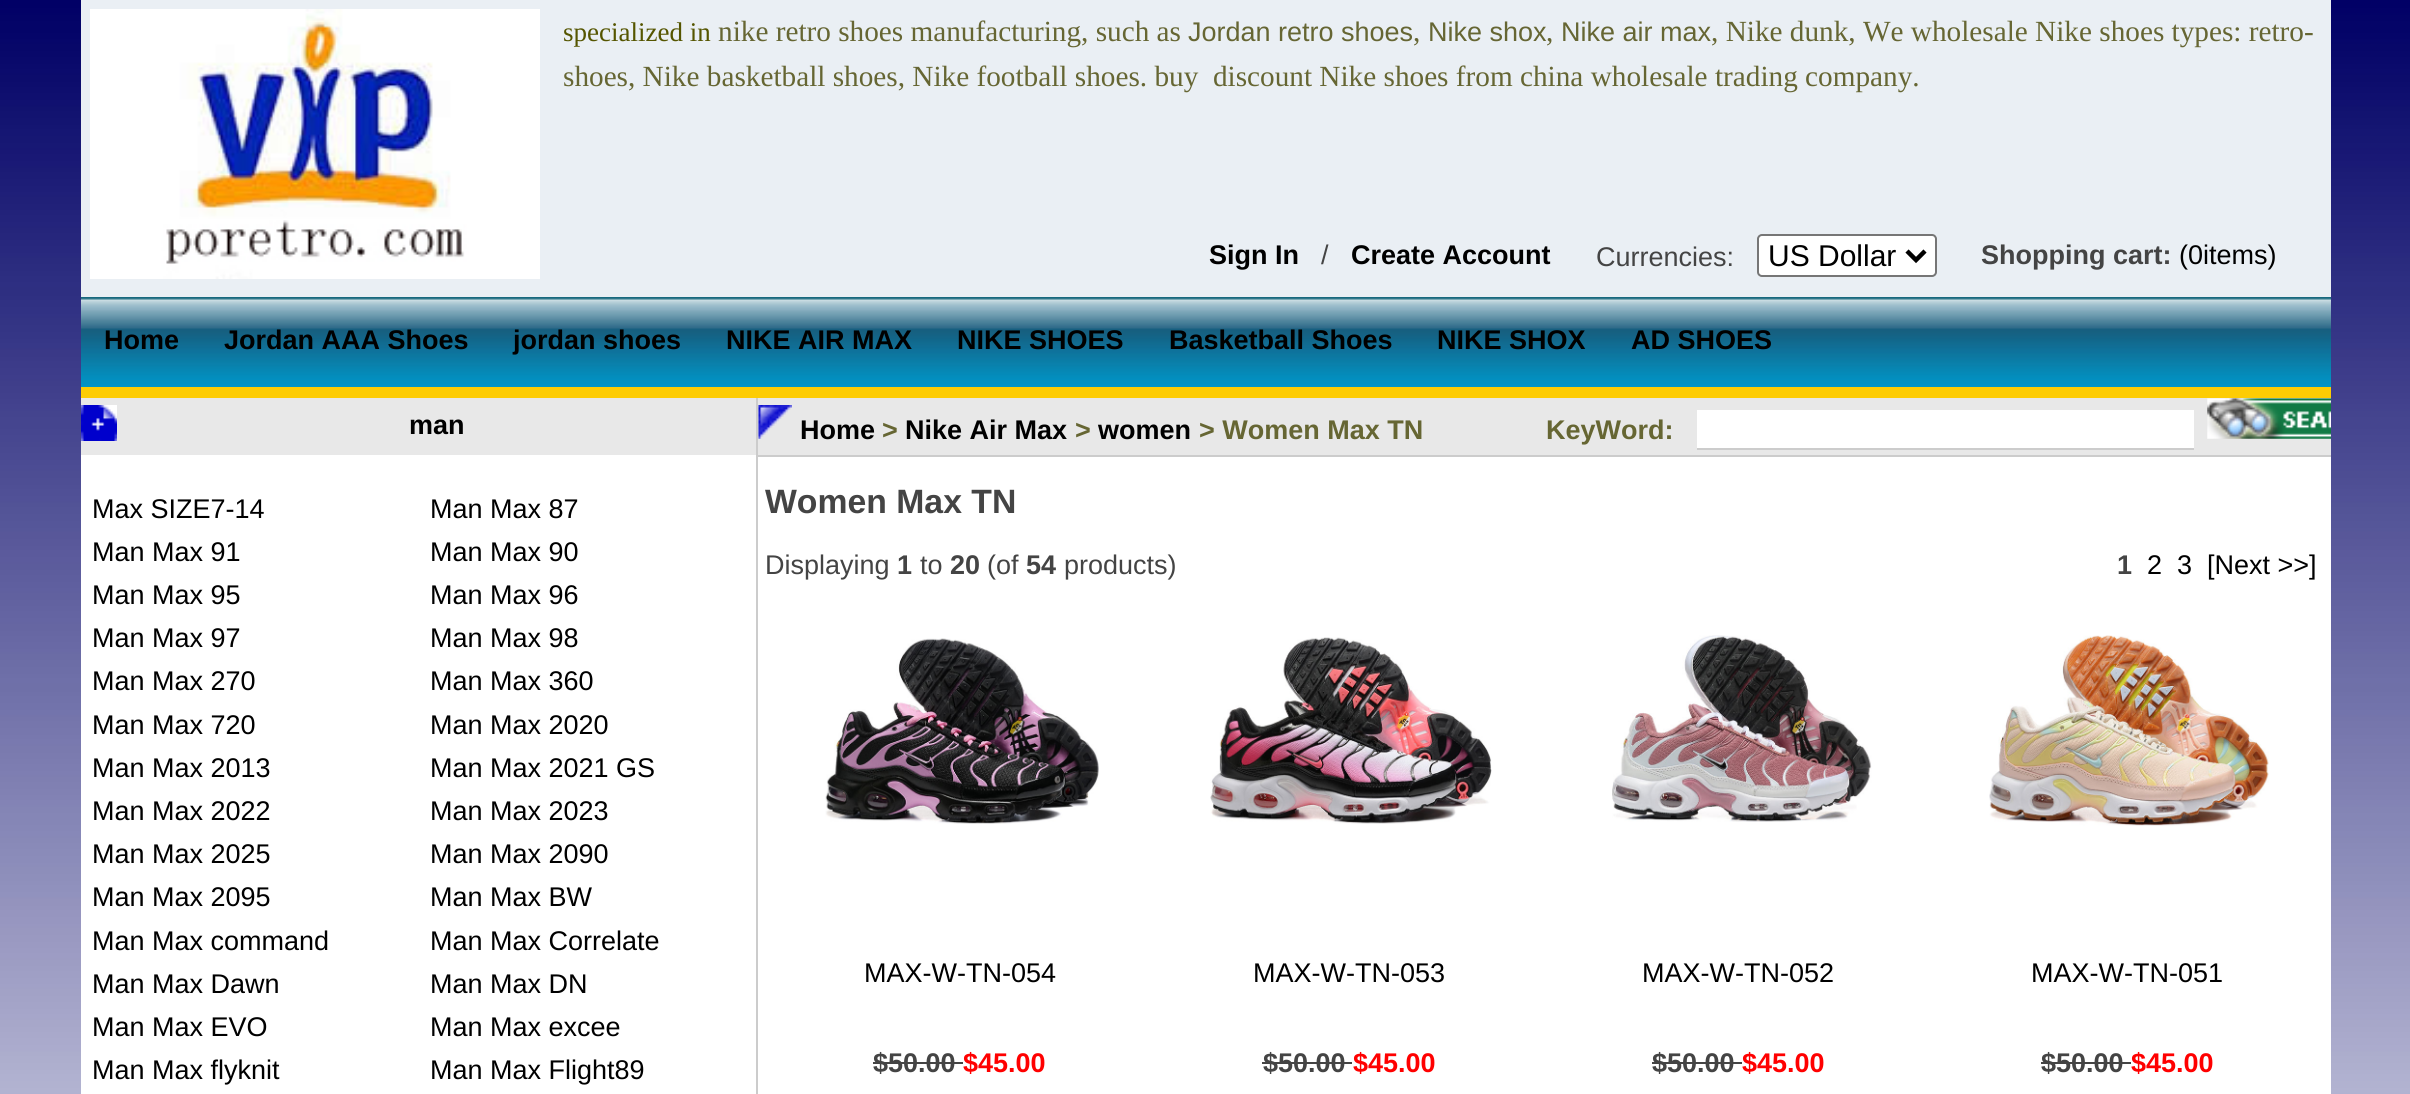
import math
import cairocffi as cairo

surface = cairo.ImageSurface(cairo.FORMAT_RGB24, 2410, 1094)
ctx = cairo.Context(surface)
options = cairo.FontOptions()
options.set_hint_metrics(cairo.HINT_METRICS_OFF)
options.set_hint_style(cairo.HINT_STYLE_NONE)
ctx.set_font_options(options)
ctx.set_miter_limit(4)


def rgb(r, g, b):
    ctx.set_source_rgb(r / 255, g / 255, b / 255)


def face(family, size, italic, bold):
    ctx.select_font_face(family, cairo.FONT_SLANT_ITALIC if italic else cairo.FONT_SLANT_NORMAL, cairo.FONT_WEIGHT_BOLD if bold else cairo.FONT_WEIGHT_NORMAL)
    ctx.set_font_size(size)


def label(x, y, s):
    ctx.move_to(x, y)
    ctx.show_text(s)


def rect(x, y, w, h):
    ctx.rectangle(x, y, w, h)
    ctx.fill()


def rrect(x, y, w, h, r):
    ctx.new_sub_path()
    for i, (u, v) in enumerate([(x + w - r, y + h - r), (x + r, y + h - r), (x + r, y + r), (x + w - r, y + r)]):
        ctx.arc(u, v, r, i * math.pi / 2, (i + 1) * math.pi / 2)
    ctx.close_path()


def image(path, x, y, w, h):
    ctx.save()
    ctx.set_source_surface(cairo.ImageSurface.create_from_png(path), x, y)
    ctx.rectangle(x, y, w, h)
    ctx.fill()
    ctx.restore()


rgb(255, 255, 255)
ctx.paint()
image('image0.png', 0, 0, 2410, 1094)
rgb(255, 255, 255)
rect(81, 455, 2250, 639)
rgb(234, 239, 244)
rect(81, 0, 2250, 297)
image('image1.png', 90, 9, 450, 270)
face('Liberation Serif', 27, 0, 0)
rgb(85, 85, 0)
label(563, 41, 'specialized in')
face('Liberation Serif', 29.25, 0, 0)
rgb(102, 102, 51)
label(718, 41, 'nike retro shoes manufacturing, such as')
face('Liberation Sans', 27, 0, 0)
label(1188, 41, 'Jordan retro shoes')
face('Liberation Serif', 29.25, 0, 0)
label(1413, 41, ',')
face('Liberation Sans', 27, 0, 0)
label(1428, 41, 'Nike shox')
face('Liberation Serif', 29.25, 0, 0)
label(1546, 41, ',')
face('Liberation Sans', 27, 0, 0)
label(1561, 41, 'Nike air max')
face('Liberation Serif', 29.25, 0, 0)
label(1711, 41, ', Nike dunk, We wholesale Nike shoes types: retro-')
label(563, 86, 'shoes, Nike basketball shoes, Nike football shoes. buy  discount Nike shoes from china wholesale trading company.')
face('Liberation Sans', 27, 0, 1)
rgb(0, 0, 0)
label(1209, 264, 'Sign In')
face('Liberation Sans', 27, 0, 0)
rgb(68, 68, 68)
label(1321, 264, '/')
face('Liberation Sans', 27, 0, 1)
rgb(0, 0, 0)
label(1351, 264, 'Create Account')
face('Liberation Sans', 27, 0, 0)
rgb(68, 68, 68)
label(1596, 266, 'Currencies:')
rgb(255, 255, 255)
rrect(1758, 235, 178, 41, 4)
ctx.fill_preserve()
rgb(118, 118, 118)
ctx.stroke()
ctx.new_path()
ctx.move_to(1907, 251)
ctx.line_to(1916, 260)
ctx.line_to(1925, 251)
rgb(0, 0, 0)
ctx.set_line_width(4.5)
ctx.stroke()
face('Liberation Sans', 30, 0, 0)
label(1768, 266, 'US Dollar')
face('Liberation Sans', 27, 0, 1)
rgb(68, 68, 68)
label(1981, 264, 'Shopping cart:')
face('Liberation Sans', 27, 0, 0)
rgb(0, 0, 0)
label(2179, 264, '(0items)')
image('image2.png', 81, 297, 2250, 90)
face('Liberation Sans', 27, 0, 1)
label(104, 349, 'Home')
label(224, 349, 'Jordan AAA Shoes')
label(513, 349, 'jordan shoes')
label(726, 349, 'NIKE AIR MAX')
label(957, 349, 'NIKE SHOES')
label(1169, 349, 'Basketball Shoes')
label(1437, 349, 'NIKE SHOX')
label(1631, 349, 'AD SHOES')
rgb(253, 204, 3)
rect(81, 387, 2250, 11)
rgb(232, 232, 232)
rect(81, 398, 675, 57)
image('image3.png', 81, 405, 36, 36)
rgb(0, 0, 0)
label(409, 434, 'man')
face('Liberation Sans', 27, 0, 0)
label(92, 518, 'Max SIZE7-14')
label(430, 518, 'Man Max 87')
label(92, 561, 'Man Max 91')
label(430, 561, 'Man Max 90')
label(92, 604, 'Man Max 95')
label(430, 604, 'Man Max 96')
label(92, 647, 'Man Max 97')
label(430, 647, 'Man Max 98')
label(92, 690, 'Man Max 270')
label(430, 690, 'Man Max 360')
label(92, 734, 'Man Max 720')
label(430, 734, 'Man Max 2020')
label(92, 777, 'Man Max 2013')
label(430, 777, 'Man Max 2021 GS')
label(92, 820, 'Man Max 2022')
label(430, 820, 'Man Max 2023')
label(92, 863, 'Man Max 2025')
label(430, 863, 'Man Max 2090')
label(92, 906, 'Man Max 2095')
label(430, 906, 'Man Max BW')
label(92, 950, 'Man Max command')
label(430, 950, 'Man Max Correlate')
label(92, 993, 'Man Max Dawn')
label(430, 993, 'Man Max DN')
label(92, 1036, 'Man Max EVO')
label(430, 1036, 'Man Max excee')
label(92, 1079, 'Man Max flyknit')
label(430, 1079, 'Man Max Flight89')
rgb(204, 204, 204)
rect(756, 398, 2, 696)
rgb(232, 232, 232)
rect(758, 398, 1573, 57)
rgb(204, 204, 204)
rect(758, 455, 1573, 2)
image('image4.png', 758, 405, 34, 34)
face('Liberation Sans', 27, 0, 1)
rgb(0, 0, 0)
label(800, 439, 'Home')
rgb(102, 102, 51)
label(882, 439, '>')
rgb(0, 0, 0)
label(905, 439, 'Nike Air Max')
rgb(102, 102, 51)
label(1075, 439, '>')
rgb(0, 0, 0)
label(1098, 439, 'women')
rgb(102, 102, 51)
label(1199, 439, '> Women Max TN')
label(1546, 439, 'KeyWord:')
rgb(255, 255, 255)
rect(1697, 410, 497, 38)
rgb(204, 204, 204)
rect(1697, 448, 497, 2)
image('image5.png', 2207, 398, 124, 41)
face('Liberation Sans', 33.75, 0, 1)
rgb(68, 68, 68)
label(765, 513, 'Women Max TN')
face('Liberation Sans', 27, 0, 0)
label(765, 574, 'Displaying')
face('Liberation Sans', 27, 0, 1)
label(897, 574, '1')
face('Liberation Sans', 27, 0, 0)
label(920, 574, 'to')
face('Liberation Sans', 27, 0, 1)
label(950, 574, '20')
face('Liberation Sans', 27, 0, 0)
label(987, 574, '(of')
face('Liberation Sans', 27, 0, 1)
label(1026, 574, '54')
face('Liberation Sans', 27, 0, 0)
label(1064, 574, 'products)')
face('Liberation Sans', 27, 0, 1)
label(2117, 574, '1')
face('Liberation Sans', 27, 0, 0)
rgb(0, 0, 0)
label(2147, 574, '2')
label(2177, 574, '3')
label(2207, 574, '[Next >>]')
image('image6.png', 825, 638, 274, 186)
label(864, 982, 'MAX-W-TN-054')
face('Liberation Sans', 27, 0, 1)
rgb(68, 68, 68)
label(873, 1072, '$50.00')
rect(873, 1062, 90, 2)
rgb(255, 0, 0)
label(963, 1072, '$45.00')
image('image7.png', 1210, 637, 282, 187)
face('Liberation Sans', 27, 0, 0)
rgb(0, 0, 0)
label(1253, 982, 'MAX-W-TN-053')
face('Liberation Sans', 27, 0, 1)
rgb(68, 68, 68)
label(1263, 1072, '$50.00')
rect(1262, 1062, 90, 2)
rgb(255, 0, 0)
label(1353, 1072, '$45.00')
image('image8.png', 1612, 635, 260, 187)
face('Liberation Sans', 27, 0, 0)
rgb(0, 0, 0)
label(1642, 982, 'MAX-W-TN-052')
face('Liberation Sans', 27, 0, 1)
rgb(68, 68, 68)
label(1652, 1072, '$50.00')
rect(1652, 1062, 90, 2)
rgb(255, 0, 0)
label(1742, 1072, '$45.00')
image('image9.png', 1989, 635, 280, 191)
face('Liberation Sans', 27, 0, 0)
rgb(0, 0, 0)
label(2031, 982, 'MAX-W-TN-051')
face('Liberation Sans', 27, 0, 1)
rgb(68, 68, 68)
label(2041, 1072, '$50.00')
rect(2041, 1062, 90, 2)
rgb(255, 0, 0)
label(2131, 1072, '$45.00')
surface.write_to_png('render.png')
